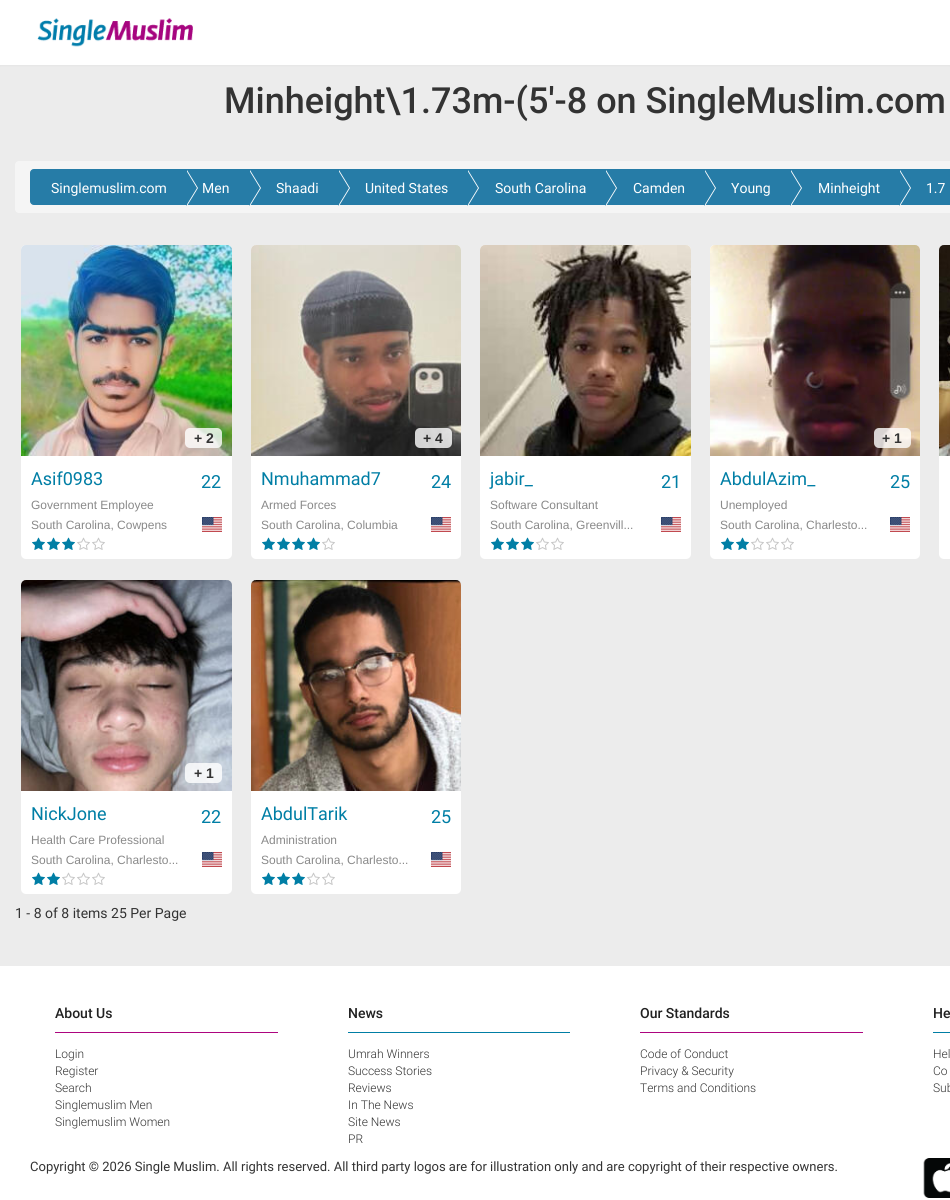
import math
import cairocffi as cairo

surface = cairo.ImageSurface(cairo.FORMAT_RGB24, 950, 1200)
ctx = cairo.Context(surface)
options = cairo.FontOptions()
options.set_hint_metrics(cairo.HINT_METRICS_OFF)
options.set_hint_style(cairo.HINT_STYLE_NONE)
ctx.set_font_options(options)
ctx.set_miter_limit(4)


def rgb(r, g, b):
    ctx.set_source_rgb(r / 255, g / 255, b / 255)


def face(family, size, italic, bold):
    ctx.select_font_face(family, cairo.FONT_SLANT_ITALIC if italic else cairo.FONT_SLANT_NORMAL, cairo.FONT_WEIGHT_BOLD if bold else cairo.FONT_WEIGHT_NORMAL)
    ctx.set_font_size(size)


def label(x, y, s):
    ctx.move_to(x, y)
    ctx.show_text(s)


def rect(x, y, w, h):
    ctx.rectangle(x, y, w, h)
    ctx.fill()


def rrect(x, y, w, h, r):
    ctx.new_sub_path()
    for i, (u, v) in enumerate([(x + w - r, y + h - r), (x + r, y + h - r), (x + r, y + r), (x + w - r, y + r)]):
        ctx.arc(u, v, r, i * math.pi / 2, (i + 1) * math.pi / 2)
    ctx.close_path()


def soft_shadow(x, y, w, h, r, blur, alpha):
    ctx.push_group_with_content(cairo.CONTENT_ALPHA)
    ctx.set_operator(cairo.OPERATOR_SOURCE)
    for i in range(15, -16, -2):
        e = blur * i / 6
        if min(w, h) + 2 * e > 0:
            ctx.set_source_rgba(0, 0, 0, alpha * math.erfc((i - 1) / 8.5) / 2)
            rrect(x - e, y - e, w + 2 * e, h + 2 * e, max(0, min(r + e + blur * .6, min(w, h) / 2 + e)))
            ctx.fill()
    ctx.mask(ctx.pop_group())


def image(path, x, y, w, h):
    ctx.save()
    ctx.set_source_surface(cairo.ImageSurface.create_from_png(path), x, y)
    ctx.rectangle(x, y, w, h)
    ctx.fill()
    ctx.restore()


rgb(236, 236, 236)
ctx.paint()
rgb(36, 37, 38)
soft_shadow(0, 0, 950, 65, 0, 1.5, 0.08)
rgb(255, 255, 255)
rect(0, 0, 950, 65)
image('image0.png', 37, 18, 156, 29)
face('Roboto Medium', 36, 0, 0)
rgb(51, 51, 51)
label(224, 113, 'Minheight\\1.73m-(5\'-8 on SingleMuslim.com')
rgb(245, 245, 245)
rrect(15, 161, 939, 52, 4)
ctx.fill()
rgb(38, 124, 167)
ctx.new_path()
ctx.move_to(34, 169.5)
ctx.line_to(187.5, 169.5)
ctx.line_to(187.5, 204.5)
ctx.line_to(34, 204.5)
ctx.curve_to(32, 204.5, 30.5, 203, 30.5, 201)
ctx.line_to(30.5, 173)
ctx.curve_to(30.5, 171, 32, 169.5, 34, 169.5)
ctx.close_path()
ctx.fill_preserve()
ctx.set_line_width(1)
ctx.stroke()
rect(188, 169, 762, 36)
rgb(255, 255, 255)
ctx.new_path()
ctx.move_to(187, 206)
ctx.line_to(187, 170)
ctx.line_to(198, 188)
ctx.close_path()
ctx.fill()
rgb(38, 124, 167)
ctx.new_path()
ctx.move_to(186, 206)
ctx.line_to(186, 170)
ctx.line_to(197, 188)
ctx.close_path()
ctx.fill()
face('Roboto', 14, 0, 0)
rgb(255, 255, 255)
label(51, 193, 'Singlemuslim.com')
ctx.new_path()
ctx.move_to(250, 206)
ctx.line_to(250, 170)
ctx.line_to(261, 188)
ctx.close_path()
ctx.fill()
rgb(38, 124, 167)
ctx.new_path()
ctx.move_to(249, 206)
ctx.line_to(249, 170)
ctx.line_to(260, 188)
ctx.close_path()
ctx.fill()
rgb(255, 255, 255)
label(202, 193, 'Men')
ctx.new_path()
ctx.move_to(339, 206)
ctx.line_to(339, 170)
ctx.line_to(350, 188)
ctx.close_path()
ctx.fill()
rgb(38, 124, 167)
ctx.new_path()
ctx.move_to(338, 206)
ctx.line_to(338, 170)
ctx.line_to(349, 188)
ctx.close_path()
ctx.fill()
rgb(255, 255, 255)
label(276, 193, 'Shaadi')
ctx.new_path()
ctx.move_to(468, 206)
ctx.line_to(468, 170)
ctx.line_to(479, 188)
ctx.close_path()
ctx.fill()
rgb(38, 124, 167)
ctx.new_path()
ctx.move_to(467, 206)
ctx.line_to(467, 170)
ctx.line_to(478, 188)
ctx.close_path()
ctx.fill()
rgb(255, 255, 255)
label(365, 193, 'United States')
ctx.new_path()
ctx.move_to(606, 206)
ctx.line_to(606, 170)
ctx.line_to(617, 188)
ctx.close_path()
ctx.fill()
rgb(38, 124, 167)
ctx.new_path()
ctx.move_to(605, 206)
ctx.line_to(605, 170)
ctx.line_to(616, 188)
ctx.close_path()
ctx.fill()
rgb(255, 255, 255)
label(495, 193, 'South Carolina')
ctx.new_path()
ctx.move_to(705, 206)
ctx.line_to(705, 170)
ctx.line_to(716, 188)
ctx.close_path()
ctx.fill()
rgb(38, 124, 167)
ctx.new_path()
ctx.move_to(704, 206)
ctx.line_to(704, 170)
ctx.line_to(715, 188)
ctx.close_path()
ctx.fill()
rgb(255, 255, 255)
label(633, 193, 'Camden')
ctx.new_path()
ctx.move_to(791, 206)
ctx.line_to(791, 170)
ctx.line_to(802, 188)
ctx.close_path()
ctx.fill()
rgb(38, 124, 167)
ctx.new_path()
ctx.move_to(790, 206)
ctx.line_to(790, 170)
ctx.line_to(801, 188)
ctx.close_path()
ctx.fill()
rgb(255, 255, 255)
label(731, 193, 'Young')
ctx.new_path()
ctx.move_to(900, 206)
ctx.line_to(900, 170)
ctx.line_to(911, 188)
ctx.close_path()
ctx.fill()
rgb(38, 124, 167)
ctx.new_path()
ctx.move_to(899, 206)
ctx.line_to(899, 170)
ctx.line_to(910, 188)
ctx.close_path()
ctx.fill()
rgb(255, 255, 255)
label(818, 193, 'Minheight')
label(926, 193, '1.7')
rrect(21, 245, 211, 314, 5)
ctx.fill()
image('image1.png', 21, 245, 211, 211)
ctx.set_source_rgba(1, 1, 1, 0.8)
rrect(185, 428, 37, 20, 5)
ctx.fill()
face('Liberation Sans', 14, 0, 1)
rgb(51, 51, 51)
label(194, 443, '+ 2')
face('Roboto', 18, 0, 0)
rgb(0, 126, 165)
label(31, 485, 'Asif0983')
label(201, 488, '22')
face('Liberation Sans', 12, 0, 0)
rgb(137, 137, 137)
label(31, 509, 'Government Employee')
label(31, 529, 'South Carolina, Cowpens')
image('image2.png', 202, 517, 20, 15)
image('image3.png', 32, 537, 13, 13)
image('image3.png', 47, 537, 13, 13)
image('image3.png', 62, 537, 13, 13)
image('image4.png', 77, 537, 13, 13)
image('image4.png', 92, 537, 13, 13)
rgb(255, 255, 255)
rrect(251, 245, 210, 314, 5)
ctx.fill()
image('image5.png', 251, 245, 210, 211)
ctx.set_source_rgba(1, 1, 1, 0.8)
rrect(415, 428, 37, 20, 5)
ctx.fill()
face('Liberation Sans', 14, 0, 1)
rgb(43, 43, 43)
label(423, 443, '+ 4')
face('Roboto', 18, 0, 0)
rgb(0, 126, 165)
label(261, 485, 'Nmuhammad7')
label(431, 488, '24')
face('Liberation Sans', 12, 0, 0)
rgb(137, 137, 137)
label(261, 509, 'Armed Forces')
label(261, 529, 'South Carolina, Columbia')
image('image2.png', 431, 517, 20, 15)
image('image3.png', 262, 537, 13, 13)
image('image3.png', 277, 537, 13, 13)
image('image3.png', 292, 537, 13, 13)
image('image3.png', 307, 537, 13, 13)
image('image4.png', 322, 537, 13, 13)
rgb(255, 255, 255)
rrect(480, 245, 211, 314, 5)
ctx.fill()
image('image6.png', 480, 245, 211, 211)
face('Roboto', 18, 0, 0)
rgb(0, 126, 165)
label(490, 485, 'jabir_')
label(661, 488, '21')
face('Liberation Sans', 12, 0, 0)
rgb(137, 137, 137)
label(490, 509, 'Software Consultant')
label(490, 529, 'South Carolina, Greenvill...')
image('image2.png', 661, 517, 20, 15)
image('image3.png', 491, 537, 13, 13)
image('image3.png', 506, 537, 13, 13)
image('image3.png', 521, 537, 13, 13)
image('image4.png', 536, 537, 13, 13)
image('image4.png', 551, 537, 13, 13)
rgb(255, 255, 255)
rrect(710, 245, 210, 314, 5)
ctx.fill()
image('image7.png', 710, 245, 210, 211)
ctx.set_source_rgba(1, 1, 1, 0.8)
rrect(874, 428, 37, 20, 5)
ctx.fill()
face('Liberation Sans', 14, 0, 1)
rgb(51, 51, 51)
label(882, 443, '+ 1')
face('Roboto', 18, 0, 0)
rgb(0, 126, 165)
label(720, 485, 'AbdulAzim_')
label(890, 488, '25')
face('Liberation Sans', 12, 0, 0)
rgb(137, 137, 137)
label(720, 509, 'Unemployed')
label(720, 529, 'South Carolina, Charlesto...')
image('image2.png', 890, 517, 20, 15)
image('image3.png', 721, 537, 13, 13)
image('image3.png', 736, 537, 13, 13)
image('image4.png', 751, 537, 13, 13)
image('image4.png', 766, 537, 13, 13)
image('image4.png', 781, 537, 13, 13)
rgb(255, 255, 255)
rrect(939, 245, 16, 314, 5)
ctx.fill()
image('image8.png', 939, 245, 11, 211)
rrect(21, 580, 211, 314, 5)
ctx.fill()
image('image9.png', 21, 580, 211, 211)
ctx.set_source_rgba(1, 1, 1, 0.8)
rrect(185, 763, 37, 20, 5)
ctx.fill()
face('Liberation Sans', 14, 0, 1)
rgb(51, 51, 51)
label(194, 778, '+ 1')
face('Roboto', 18, 0, 0)
rgb(0, 126, 165)
label(31, 820, 'NickJone')
label(201, 823, '22')
face('Liberation Sans', 12, 0, 0)
rgb(137, 137, 137)
label(31, 844, 'Health Care Professional')
label(31, 864, 'South Carolina, Charlesto...')
image('image2.png', 202, 852, 20, 15)
image('image3.png', 32, 872, 13, 13)
image('image3.png', 47, 872, 13, 13)
image('image4.png', 62, 872, 13, 13)
image('image4.png', 77, 872, 13, 13)
image('image4.png', 92, 872, 13, 13)
rgb(255, 255, 255)
rrect(251, 580, 210, 314, 5)
ctx.fill()
image('image10.png', 251, 580, 210, 211)
face('Roboto', 18, 0, 0)
rgb(0, 126, 165)
label(261, 820, 'AbdulTarik')
label(431, 823, '25')
face('Liberation Sans', 12, 0, 0)
rgb(137, 137, 137)
label(261, 844, 'Administration')
label(261, 864, 'South Carolina, Charlesto...')
image('image2.png', 431, 852, 20, 15)
image('image3.png', 262, 872, 13, 13)
image('image3.png', 277, 872, 13, 13)
image('image3.png', 292, 872, 13, 13)
image('image4.png', 307, 872, 13, 13)
image('image4.png', 322, 872, 13, 13)
face('Roboto', 14, 0, 0)
rgb(51, 51, 51)
label(15, 918, '1 - 8 of 8 items 25 Per Page')
rgb(255, 255, 255)
rect(0, 966, 950, 234)
rgb(173, 5, 127)
rect(55, 1032, 223, 1)
face('Roboto Medium', 14, 0, 0)
rgb(33, 33, 33)
label(55, 1018, 'About Us')
face('Roboto Light', 12, 0, 0)
rgb(51, 51, 51)
label(55, 1058, 'Login')
label(55, 1075, 'Register')
label(55, 1092, 'Search')
label(55, 1109, 'Singlemuslim Men')
label(55, 1126, 'Singlemuslim Women')
rgb(0, 126, 165)
rect(348, 1032, 222, 1)
face('Roboto Medium', 14, 0, 0)
rgb(33, 33, 33)
label(348, 1018, 'News')
face('Roboto Light', 12, 0, 0)
rgb(51, 51, 51)
label(348, 1058, 'Umrah Winners')
label(348, 1075, 'Success Stories')
label(348, 1092, 'Reviews')
label(348, 1109, 'In The News')
label(348, 1126, 'Site News')
label(348, 1143, 'PR')
rgb(173, 5, 127)
rect(640, 1032, 223, 1)
face('Roboto Medium', 14, 0, 0)
rgb(33, 33, 33)
label(640, 1018, 'Our Standards')
face('Roboto Light', 12, 0, 0)
rgb(51, 51, 51)
label(640, 1058, 'Code of Conduct')
label(640, 1075, 'Privacy & Security')
label(640, 1092, 'Terms and Conditions')
rgb(0, 126, 165)
rect(933, 1032, 17, 1)
face('Roboto Medium', 14, 0, 0)
rgb(33, 33, 33)
label(933, 1018, 'He')
face('Roboto Light', 12, 0, 0)
rgb(51, 51, 51)
label(933, 1058, 'Hel')
label(933, 1075, 'Co')
label(933, 1092, 'Sub')
face('Roboto', 13, 0, 0)
label(30, 1171, 'Copyright © 2026 Single Muslim. All rights reserved. All third party logos are for illustration only and are copyright of their respective owners.')
image('image11.png', 923, 1158, 27, 40)
surface.write_to_png('render.png')
